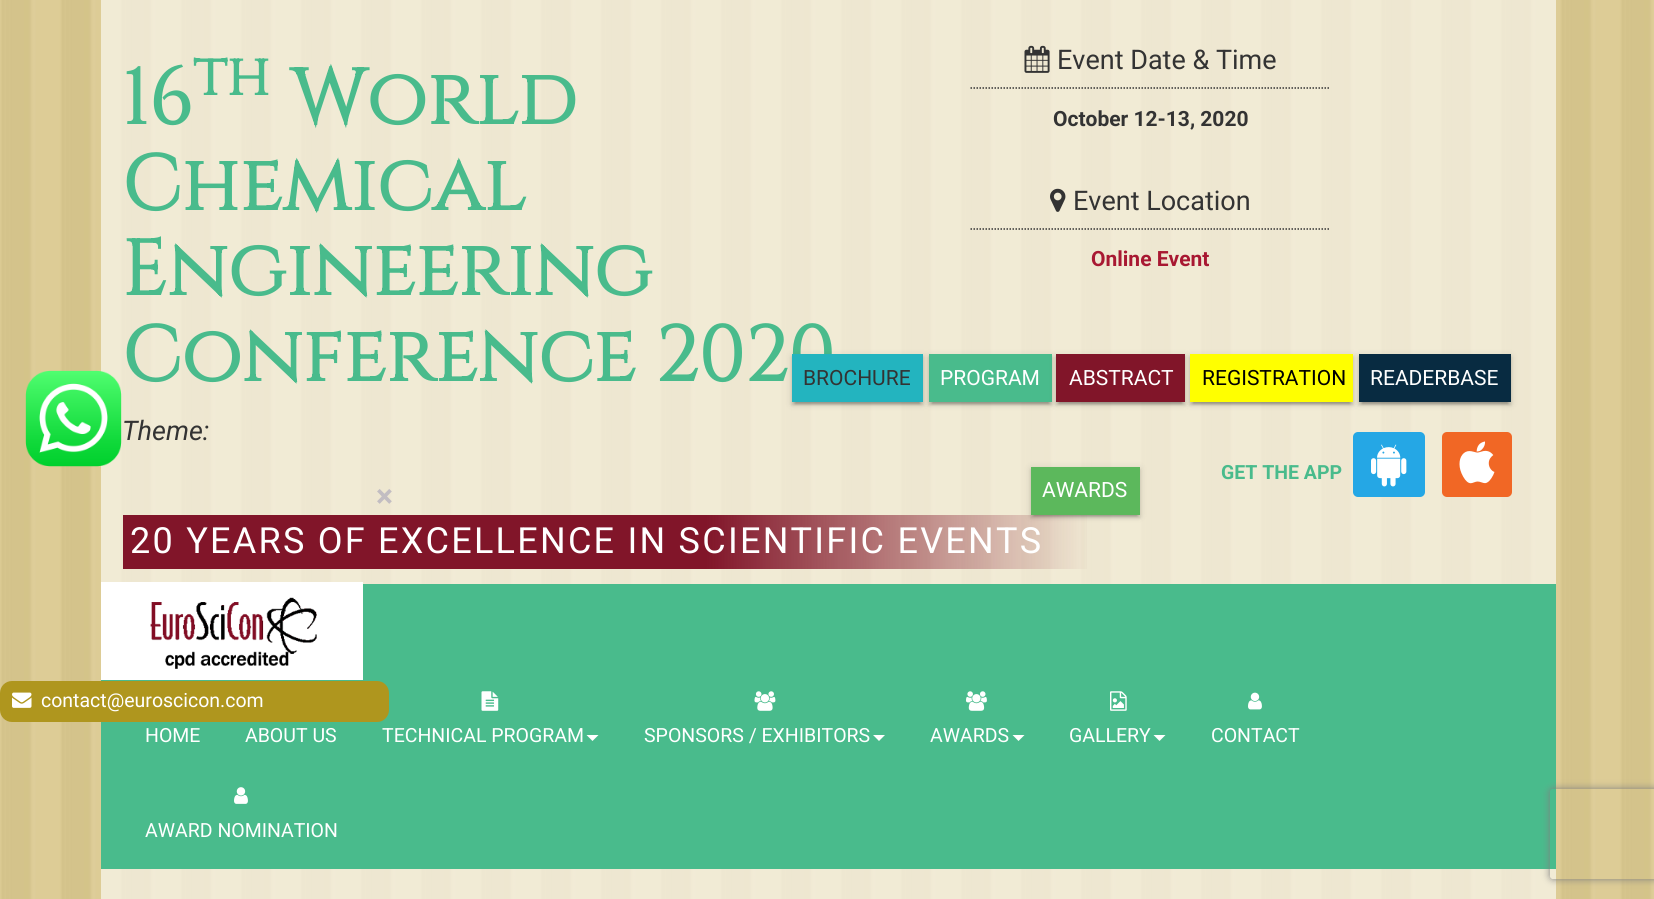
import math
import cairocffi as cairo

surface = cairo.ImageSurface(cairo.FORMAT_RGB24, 1654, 899)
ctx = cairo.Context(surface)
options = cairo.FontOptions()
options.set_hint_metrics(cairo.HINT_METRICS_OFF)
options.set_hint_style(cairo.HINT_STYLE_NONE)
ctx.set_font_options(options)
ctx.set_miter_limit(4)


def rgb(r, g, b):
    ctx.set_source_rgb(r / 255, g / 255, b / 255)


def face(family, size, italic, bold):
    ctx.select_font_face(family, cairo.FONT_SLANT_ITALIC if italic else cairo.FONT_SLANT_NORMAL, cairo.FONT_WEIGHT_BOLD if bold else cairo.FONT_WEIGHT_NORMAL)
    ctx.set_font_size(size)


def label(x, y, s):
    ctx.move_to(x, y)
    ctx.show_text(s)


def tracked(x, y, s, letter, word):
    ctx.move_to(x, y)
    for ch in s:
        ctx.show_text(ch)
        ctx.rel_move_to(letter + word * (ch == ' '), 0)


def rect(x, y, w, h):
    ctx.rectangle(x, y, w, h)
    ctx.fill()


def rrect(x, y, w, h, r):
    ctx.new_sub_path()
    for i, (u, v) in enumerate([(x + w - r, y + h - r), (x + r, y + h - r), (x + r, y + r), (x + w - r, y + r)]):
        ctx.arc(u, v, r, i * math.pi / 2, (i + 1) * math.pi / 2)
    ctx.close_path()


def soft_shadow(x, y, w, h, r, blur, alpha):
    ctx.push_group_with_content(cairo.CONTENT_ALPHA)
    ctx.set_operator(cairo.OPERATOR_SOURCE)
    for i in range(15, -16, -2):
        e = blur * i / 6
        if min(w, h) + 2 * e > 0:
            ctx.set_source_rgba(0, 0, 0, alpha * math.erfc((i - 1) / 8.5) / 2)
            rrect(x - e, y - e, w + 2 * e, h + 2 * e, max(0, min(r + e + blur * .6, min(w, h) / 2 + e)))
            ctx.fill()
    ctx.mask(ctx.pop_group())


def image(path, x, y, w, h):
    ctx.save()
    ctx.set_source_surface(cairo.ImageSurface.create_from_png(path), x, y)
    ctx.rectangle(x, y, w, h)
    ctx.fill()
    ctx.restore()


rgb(255, 255, 255)
ctx.paint()
image('image0.png', 0, 0, 1654, 899)
ctx.set_source_rgba(1, 1, 1, 0.6)
rect(101, 0, 1455, 899)
face('Cinzel', 78, 0, 1)
rgb(73, 187, 140)
label(122, 124, '16')
face('Cinzel', 58, 0, 1)
label(193, 95, 'th')
face('Cinzel', 78, 0, 1)
label(290, 124, 'World')
label(122, 210, 'Chemical')
label(122, 295, 'Engineering')
label(122, 381, 'Conference 2020')
face('Roboto', 27, 1, 0)
rgb(51, 51, 51)
label(122, 440, 'Theme:')
ctx.new_path()
ctx.move_to(970.5, 88)
ctx.line_to(1330.5, 88)
ctx.set_line_width(1.5)
ctx.set_dash([1.5, 1.5])
ctx.stroke()
image('image1.png', 1024, 45, 26, 28)
face('Roboto', 27, 0, 0)
label(1057, 69, 'Event Date & Time')
face('Roboto', 21, 0, 1)
label(1053, 126, 'October 12-13, 2020')
ctx.new_path()
ctx.move_to(970.5, 229)
ctx.line_to(1330.5, 229)
ctx.stroke()
image('image2.png', 1050, 188, 16, 24)
face('Roboto', 27, 0, 0)
label(1073, 210, 'Event Location')
face('Roboto', 21, 0, 1)
rgb(168, 24, 50)
label(1091, 266, 'Online Event')
rgb(0, 0, 0)
soft_shadow(792, 356, 131, 48, 0, 4, 0.12)
soft_shadow(795, 362, 125, 42, 0, 1, 0.2)
soft_shadow(792, 357, 131, 48, 0, 1.5, 0.14)
rgb(35, 180, 191)
rect(792, 354, 131, 48)
face('Roboto', 21, 0, 0)
rgb(51, 51, 51)
label(803, 385, 'BROCHURE')
rgb(0, 0, 0)
soft_shadow(929, 356, 123, 48, 0, 4, 0.12)
soft_shadow(932, 362, 117, 42, 0, 1, 0.2)
soft_shadow(929, 357, 123, 48, 0, 1.5, 0.14)
rgb(73, 187, 140)
rect(929, 354, 123, 48)
rgb(255, 255, 255)
label(940, 385, 'PROGRAM')
rgb(0, 0, 0)
soft_shadow(1056, 356, 129, 48, 0, 4, 0.12)
soft_shadow(1059, 362, 123, 42, 0, 1, 0.2)
soft_shadow(1056, 357, 129, 48, 0, 1.5, 0.14)
rgb(129, 21, 41)
rect(1056, 354, 129, 48)
rgb(255, 255, 255)
label(1069, 385, 'ABSTRACT')
rgb(0, 0, 0)
soft_shadow(1190, 356, 163, 48, 0, 4, 0.12)
soft_shadow(1193, 362, 157, 42, 0, 1, 0.2)
soft_shadow(1190, 357, 163, 48, 0, 1.5, 0.14)
rgb(255, 255, 0)
rect(1190, 354, 163, 48)
rgb(0, 0, 0)
label(1202, 385, 'REGISTRATION')
rgb(0, 0, 0)
soft_shadow(1359, 356, 152, 48, 0, 4, 0.12)
soft_shadow(1362, 362, 146, 42, 0, 1, 0.2)
soft_shadow(1359, 357, 152, 48, 0, 1.5, 0.14)
rgb(8, 43, 65)
rect(1359, 354, 152, 48)
rgb(255, 255, 255)
label(1370, 385, 'READERBASE')
face('Roboto', 19.5, 0, 1)
rgb(73, 187, 140)
label(1221, 479, 'GET THE APP')
rgb(37, 167, 229)
rrect(1353, 432, 72, 65, 5)
ctx.fill()
image('image3.png', 1371, 444, 36, 43)
rgb(241, 103, 37)
rrect(1442, 432, 70, 65, 5)
ctx.fill()
image('image4.png', 1459, 441, 36, 43)
rgb(0, 0, 0)
soft_shadow(1031, 468, 109, 48, 0, 4, 0.12)
soft_shadow(1034, 474, 103, 42, 0, 1, 0.2)
soft_shadow(1031, 470, 109, 48, 0, 1.5, 0.14)
rgb(92, 184, 92)
rect(1031, 467, 109, 48)
face('Roboto', 21, 0, 0)
rgb(255, 255, 255)
label(1042, 497, 'AWARDS')
gradient = cairo.LinearGradient(123, 542, 1095, 542)
gradient.add_color_stop_rgba(0, 0.506, 0.082, 0.161, 1)
gradient.add_color_stop_rgba(0.6, 0.506, 0.082, 0.161, 1)
gradient.add_color_stop_rgba(1, 0.506, 0.082, 0.161, 0)
ctx.set_source(gradient)
rect(123, 515, 964, 54)
face('Roboto', 36, 0, 0)
rgb(255, 255, 255)
tracked(130, 553, '20 YEARS OF EXCELLENCE IN SCIENTIFIC EVENTS', 2.25, 0)
rgb(73, 187, 140)
rect(101, 584, 1455, 285)
rgb(255, 255, 255)
rect(101, 582, 262, 98)
image('image5.png', 150, 597, 167, 72)
face('Roboto', 19.5, 0, 0)
label(145, 742, 'HOME')
label(245, 742, 'ABOUT US')
image('image6.png', 481, 691, 18, 20)
label(382, 742, 'TECHNICAL PROGRAM')
ctx.new_path()
ctx.move_to(586.5, 735)
ctx.line_to(598.5, 735)
ctx.line_to(592.5, 741)
ctx.close_path()
ctx.fill()
image('image7.png', 754, 691, 22, 20)
label(644, 742, 'SPONSORS / EXHIBITORS')
ctx.new_path()
ctx.move_to(873, 735)
ctx.line_to(885, 735)
ctx.line_to(879, 741)
ctx.close_path()
ctx.fill()
image('image8.png', 966, 691, 21, 20)
label(930, 742, 'AWARDS')
ctx.new_path()
ctx.move_to(1012.5, 735)
ctx.line_to(1024.5, 735)
ctx.line_to(1018.5, 741)
ctx.close_path()
ctx.fill()
image('image9.png', 1110, 691, 17, 20)
label(1069, 742, 'GALLERY')
ctx.new_path()
ctx.move_to(1153.5, 735)
ctx.line_to(1165.5, 735)
ctx.line_to(1159.5, 741)
ctx.close_path()
ctx.fill()
image('image10.png', 1248, 692, 14, 18)
label(1211, 742, 'CONTACT')
image('image11.png', 234, 787, 14, 17)
label(145, 837, 'AWARD NOMINATION')
image('image12.png', 25, 370, 97, 97)
face('Roboto', 32, 0, 1)
rgb(194, 189, 194)
label(376, 507, '×')
rgb(175, 150, 30)
rrect(0, 681, 389, 41, 12)
ctx.fill()
image('image13.png', 12, 692, 20, 16)
face('Roboto', 19.5, 0, 0)
rgb(255, 255, 255)
label(41, 707, 'contact@euroscicon.com')
ctx.save()
ctx.set_fill_rule(cairo.FILL_RULE_EVEN_ODD)
ctx.new_path()
ctx.move_to(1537, 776)
ctx.line_to(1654, 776)
ctx.line_to(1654, 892)
ctx.line_to(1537, 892)
ctx.close_path()
ctx.move_to(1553, 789)
ctx.line_to(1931, 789)
ctx.curve_to(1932.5, 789, 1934, 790.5, 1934, 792)
ctx.line_to(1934, 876)
ctx.curve_to(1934, 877.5, 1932.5, 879, 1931, 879)
ctx.line_to(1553, 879)
ctx.curve_to(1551.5, 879, 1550, 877.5, 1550, 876)
ctx.line_to(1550, 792)
ctx.curve_to(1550, 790.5, 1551.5, 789, 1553, 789)
ctx.close_path()
ctx.clip()
rgb(128, 128, 128)
soft_shadow(1550, 789, 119, 90, 3, 4, 1)
ctx.restore()
surface.write_to_png('render.png')
